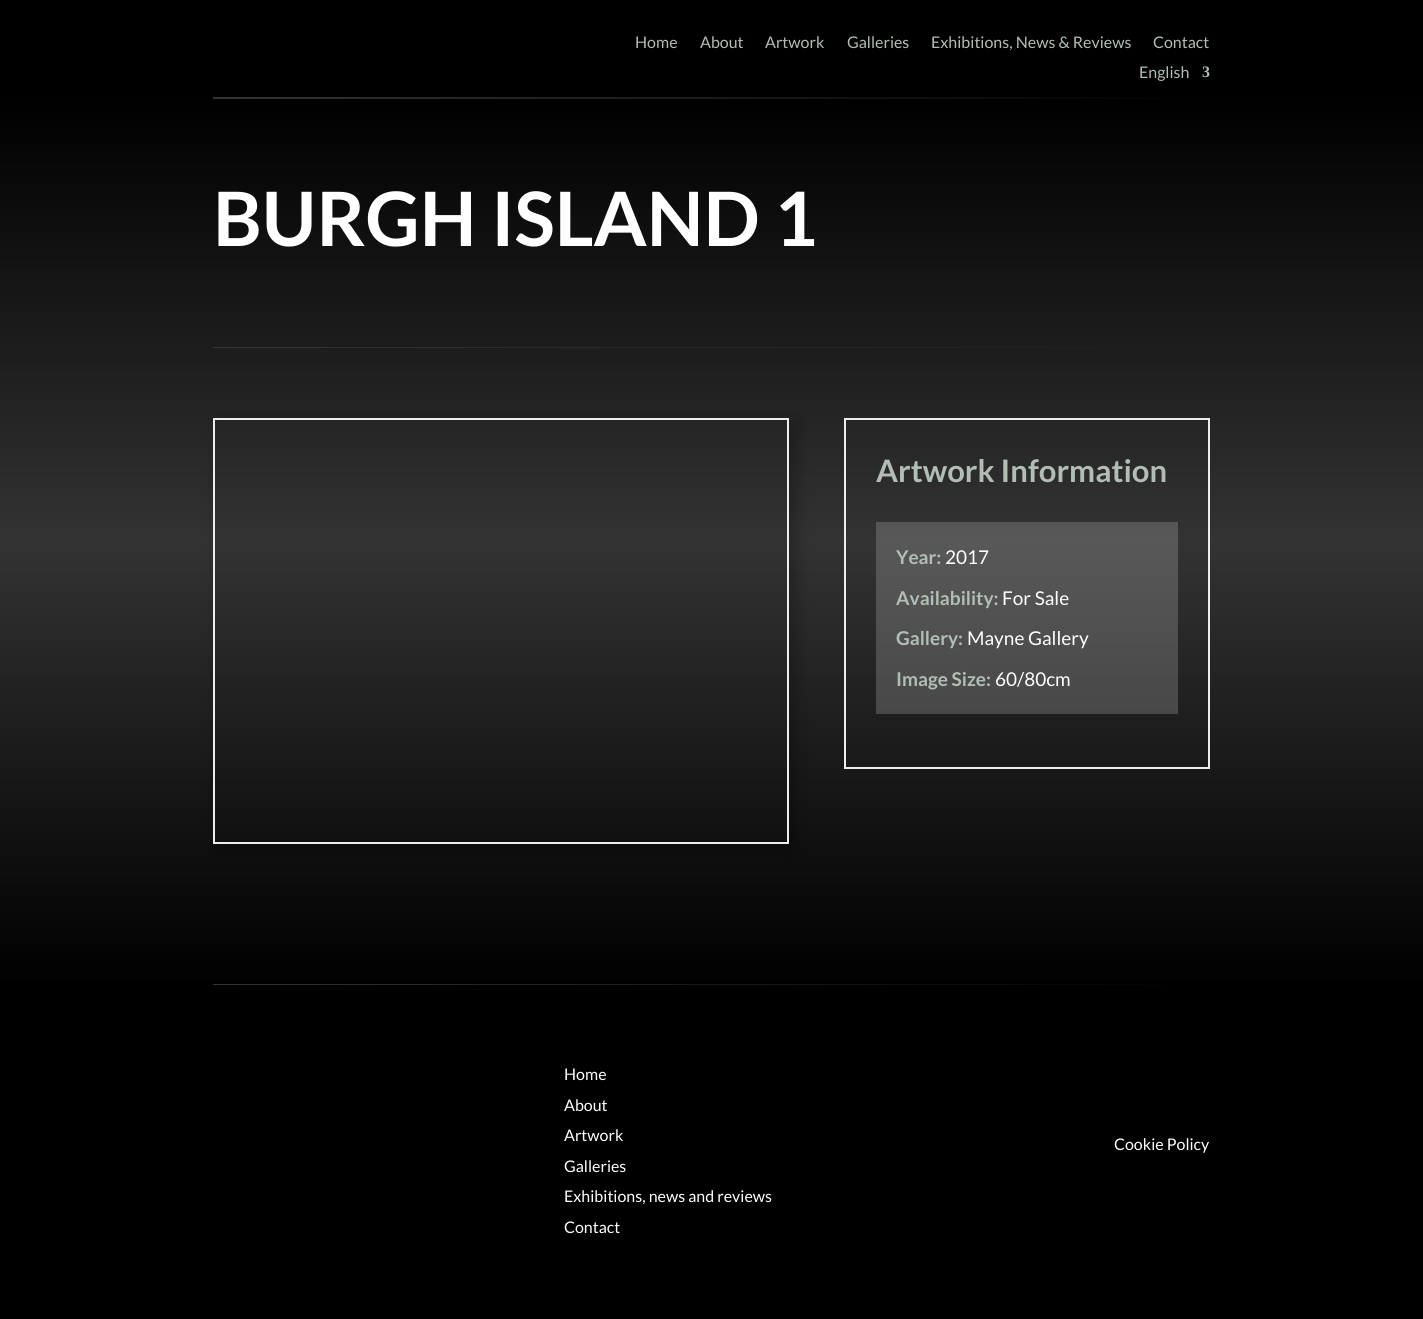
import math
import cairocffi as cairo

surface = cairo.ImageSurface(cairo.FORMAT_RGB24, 1423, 1319)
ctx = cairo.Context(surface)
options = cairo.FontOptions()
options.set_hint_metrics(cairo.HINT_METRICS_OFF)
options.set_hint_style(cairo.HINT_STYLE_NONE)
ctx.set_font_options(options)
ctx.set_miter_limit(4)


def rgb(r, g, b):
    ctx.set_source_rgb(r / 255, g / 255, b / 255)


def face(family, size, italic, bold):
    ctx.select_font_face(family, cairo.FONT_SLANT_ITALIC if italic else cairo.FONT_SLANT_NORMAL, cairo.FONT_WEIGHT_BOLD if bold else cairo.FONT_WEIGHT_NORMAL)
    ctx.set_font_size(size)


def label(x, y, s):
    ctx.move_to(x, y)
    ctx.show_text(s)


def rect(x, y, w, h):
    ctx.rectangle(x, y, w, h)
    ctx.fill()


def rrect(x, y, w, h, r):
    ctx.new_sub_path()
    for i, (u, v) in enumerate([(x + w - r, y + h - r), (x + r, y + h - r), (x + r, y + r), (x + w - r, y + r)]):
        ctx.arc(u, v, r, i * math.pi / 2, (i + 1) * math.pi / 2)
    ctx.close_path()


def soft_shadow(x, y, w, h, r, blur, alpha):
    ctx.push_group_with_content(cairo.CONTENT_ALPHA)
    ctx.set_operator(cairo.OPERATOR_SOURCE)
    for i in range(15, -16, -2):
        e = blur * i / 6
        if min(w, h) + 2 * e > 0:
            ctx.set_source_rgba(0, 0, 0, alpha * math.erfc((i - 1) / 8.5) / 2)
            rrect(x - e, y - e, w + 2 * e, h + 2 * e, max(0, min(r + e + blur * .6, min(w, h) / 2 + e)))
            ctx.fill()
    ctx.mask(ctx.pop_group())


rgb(255, 255, 255)
ctx.paint()
rgb(0, 0, 0)
rect(0, 0, 1423, 99)
face('Lato', 16, 0, 0)
rgb(178, 190, 181)
label(635, 48, 'Home')
label(700, 48, 'About')
label(765, 48, 'Artwork')
label(847, 48, 'Galleries')
label(931, 48, 'Exhibitions, News & Reviews')
label(1153, 48, 'Contact')
label(1139, 78, 'English')
face('Liberation Serif', 16, 0, 1)
label(1202, 77, '3')
gradient = cairo.LinearGradient(213, 98, 1210, 97)
gradient.add_color_stop_rgba(0, 0.2, 0.2, 0.2, 1)
gradient.add_color_stop_rgba(1, 0, 0, 0, 1)
ctx.set_source(gradient)
rect(213, 97, 948, 1)
gradient = cairo.LinearGradient(213, 99, 1210, 98)
gradient.add_color_stop_rgba(0, 0.2, 0.2, 0.2, 1)
gradient.add_color_stop_rgba(1, 0, 0, 0, 1)
ctx.set_source(gradient)
rect(213, 98, 948, 1)
gradient = cairo.LinearGradient(712, 99, 712, 984)
gradient.add_color_stop_rgba(0, 0, 0, 0, 1)
gradient.add_color_stop_rgba(0.5, 0.2, 0.2, 0.2, 1)
gradient.add_color_stop_rgba(1, 0, 0, 0, 1)
ctx.set_source(gradient)
rect(0, 99, 1423, 885)
gradient = cairo.LinearGradient(712, 99, 712, 984)
gradient.add_color_stop_rgba(0, 0.184, 0.184, 0.184, 1)
gradient.add_color_stop_rgba(0.5, 0.345, 0.345, 0.345, 1)
gradient.add_color_stop_rgba(1, 0.184, 0.184, 0.184, 1)
ctx.set_source(gradient)
rect(876, 654, 302, 60)
rect(876, 613, 302, 41)
rect(876, 573, 302, 40)
rect(876, 522, 302, 51)
face('Lato', 75, 0, 1)
rgb(255, 255, 255)
label(213, 246, 'BURGH ISLAND 1')
gradient = cairo.LinearGradient(213, 348, 1210, 347)
gradient.add_color_stop_rgba(0, 0.2, 0.2, 0.2, 1)
gradient.add_color_stop_rgba(1, 0.114, 0.114, 0.114, 1)
ctx.set_source(gradient)
rect(213, 347, 884, 1)
ctx.save()
ctx.set_fill_rule(cairo.FILL_RULE_EVEN_ODD)
ctx.new_path()
ctx.move_to(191, 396)
ctx.line_to(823, 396)
ctx.line_to(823, 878)
ctx.line_to(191, 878)
ctx.close_path()
ctx.move_to(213, 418)
ctx.line_to(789, 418)
ctx.line_to(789, 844)
ctx.line_to(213, 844)
ctx.close_path()
ctx.clip()
rgb(0, 0, 0)
soft_shadow(219, 424, 576, 426, 0, 9, 0.3)
ctx.restore()
ctx.rectangle(214, 419, 574, 424)
rgb(237, 237, 237)
ctx.stroke()
ctx.rectangle(845, 419, 364, 349)
ctx.stroke()
face('Lato', 31, 0, 1)
rgb(178, 190, 181)
label(876, 482, 'Artwork Information')
face('Lato', 19, 0, 1)
label(896, 564, 'Year:')
face('Lato', 19, 0, 0)
rgb(255, 255, 255)
label(945, 564, '2017')
face('Lato', 19, 0, 1)
rgb(178, 190, 181)
label(896, 605, 'Availability:')
face('Lato', 19, 0, 0)
rgb(255, 255, 255)
label(1002, 605, 'For Sale')
face('Lato', 19, 0, 1)
rgb(178, 190, 181)
label(896, 645, 'Gallery:')
face('Lato', 19, 0, 0)
rgb(255, 255, 255)
label(967, 645, 'Mayne Gallery')
face('Lato', 19, 0, 1)
rgb(178, 190, 181)
label(896, 686, 'Image Size:')
face('Lato', 19, 0, 0)
rgb(255, 255, 255)
label(995, 686, '60/80cm')
rgb(0, 0, 0)
rect(0, 984, 1423, 335)
gradient = cairo.LinearGradient(213, 985, 1210, 985)
gradient.add_color_stop_rgba(0, 0.2, 0.2, 0.2, 1)
gradient.add_color_stop_rgba(1, 0, 0, 0, 1)
ctx.set_source(gradient)
rect(213, 984, 948, 1)
face('Lato', 16, 0, 0)
rgb(255, 255, 255)
label(564, 1080, 'Home')
label(564, 1111, 'About')
label(564, 1141, 'Artwork')
label(564, 1172, 'Galleries')
label(564, 1202, 'Exhibitions, news and reviews')
label(564, 1233, 'Contact')
label(1114, 1150, 'Cookie Policy')
surface.write_to_png('render.png')
